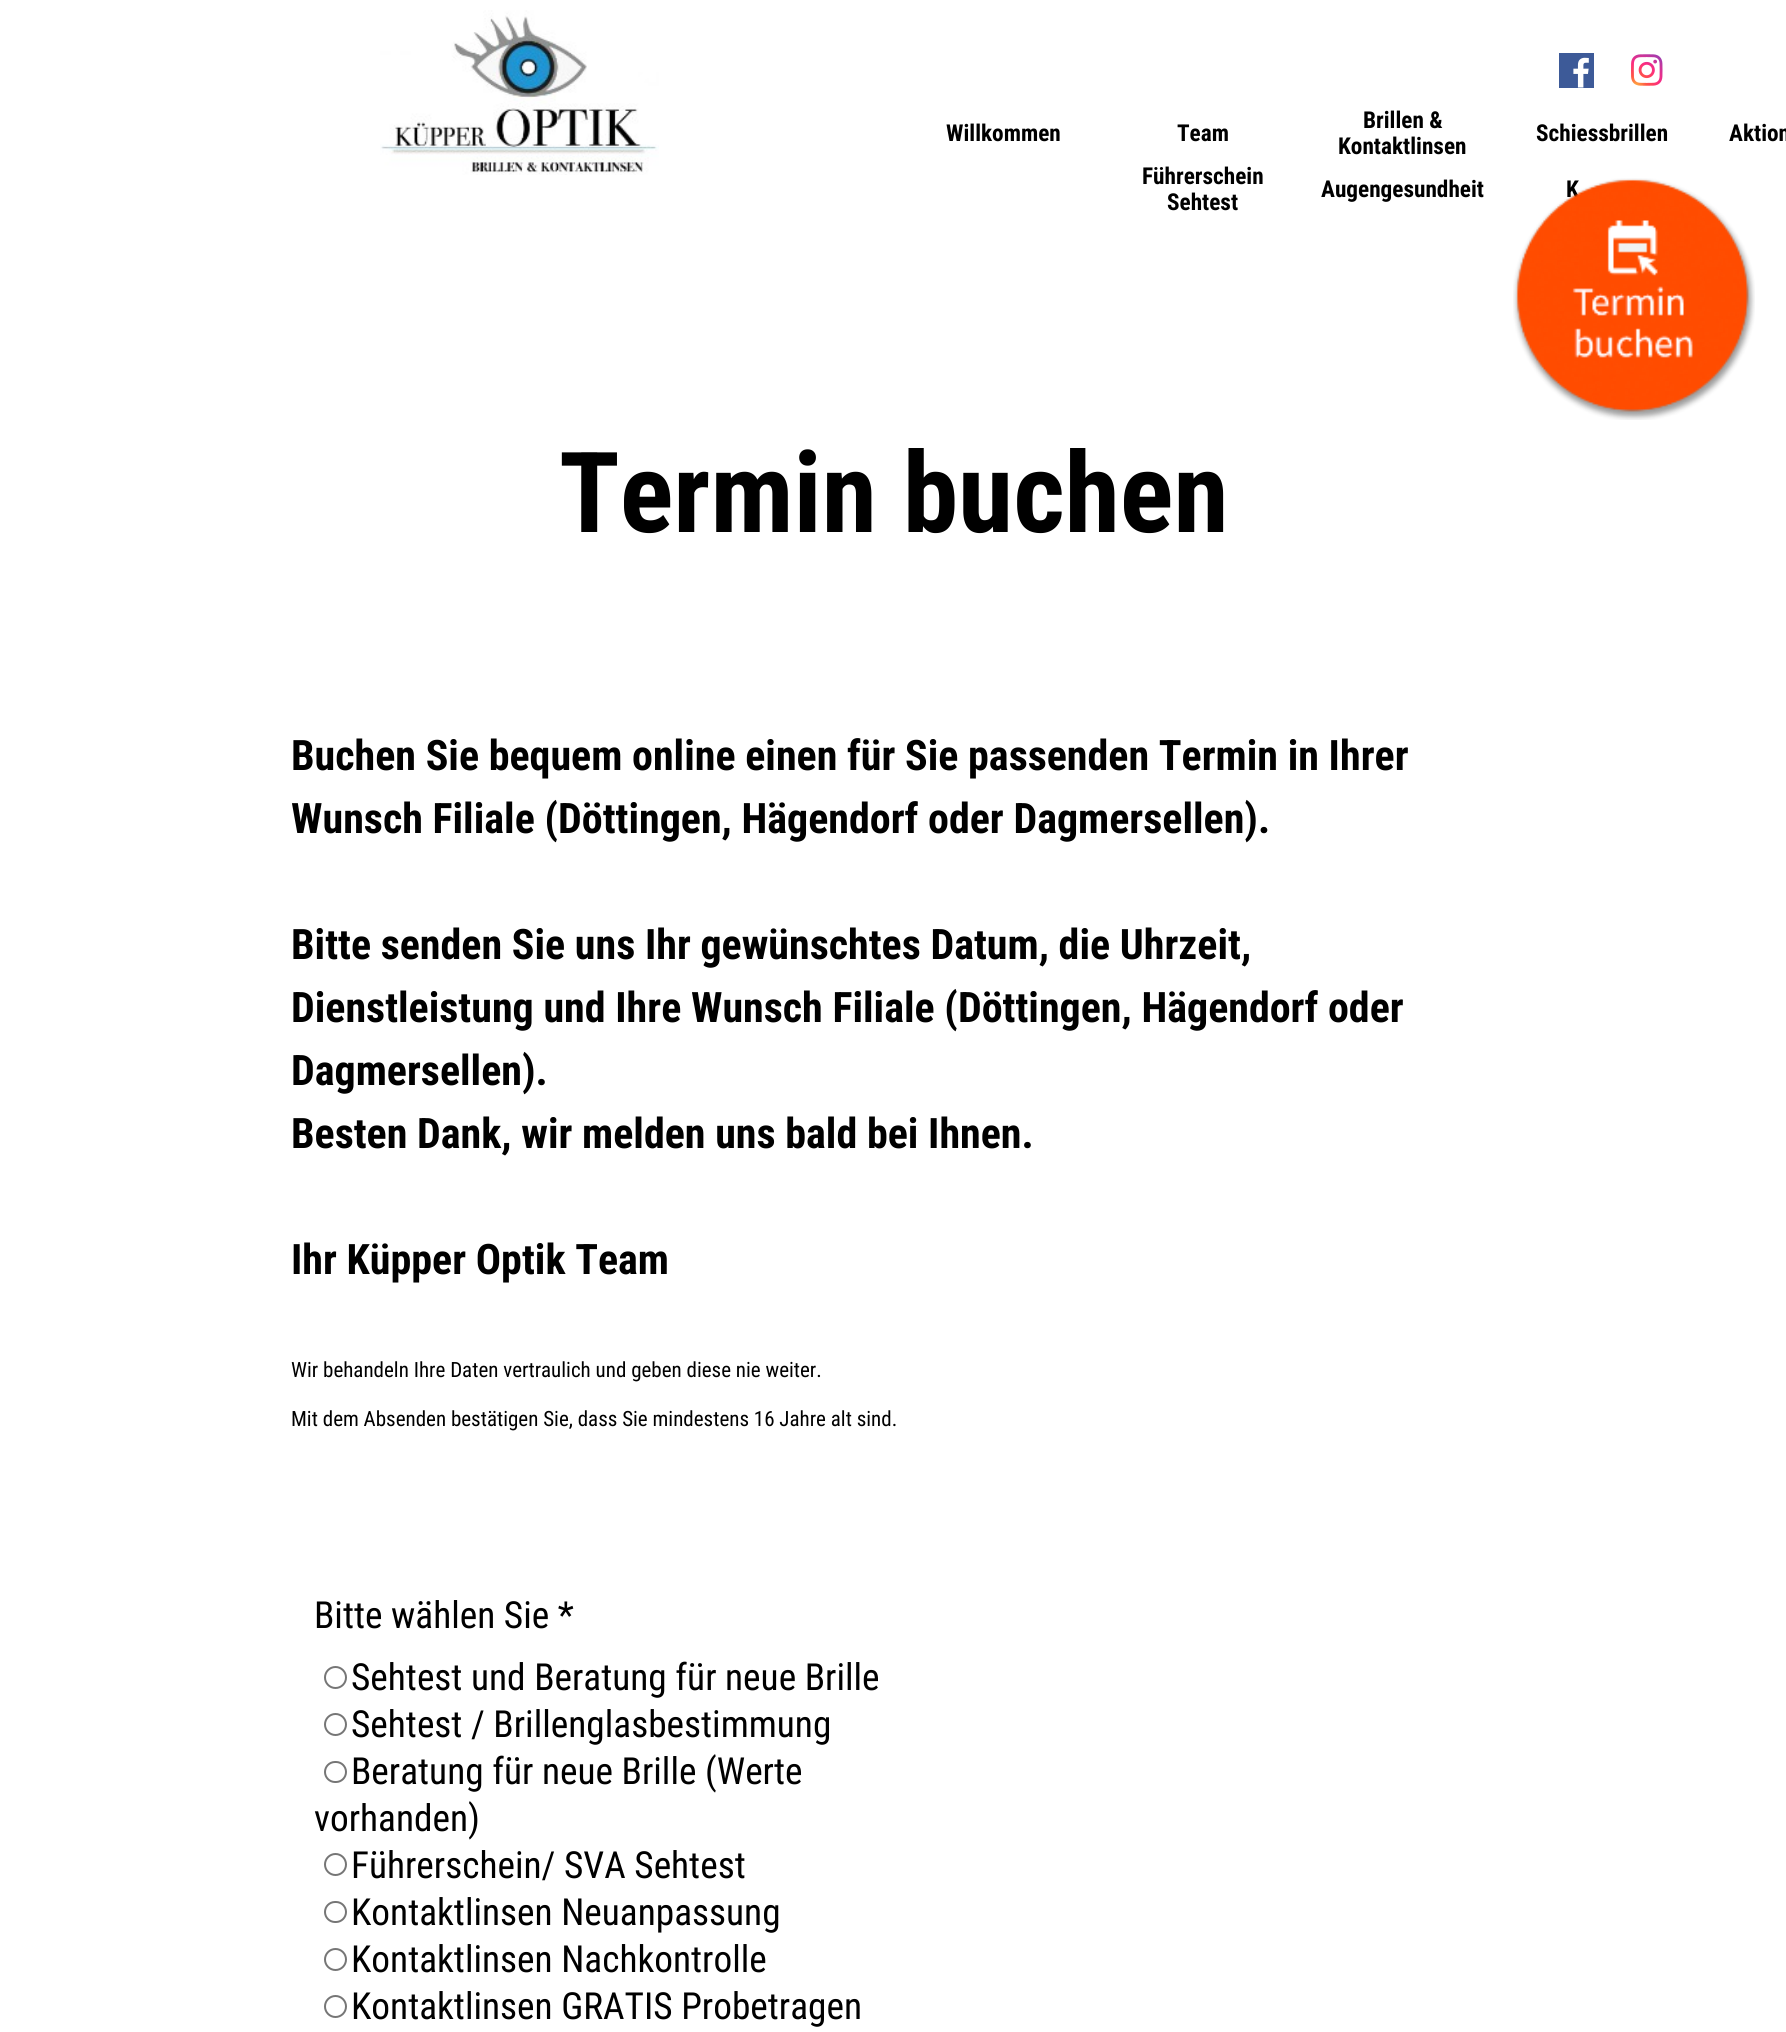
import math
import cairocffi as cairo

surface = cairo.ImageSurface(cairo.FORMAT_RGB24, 1786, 2032)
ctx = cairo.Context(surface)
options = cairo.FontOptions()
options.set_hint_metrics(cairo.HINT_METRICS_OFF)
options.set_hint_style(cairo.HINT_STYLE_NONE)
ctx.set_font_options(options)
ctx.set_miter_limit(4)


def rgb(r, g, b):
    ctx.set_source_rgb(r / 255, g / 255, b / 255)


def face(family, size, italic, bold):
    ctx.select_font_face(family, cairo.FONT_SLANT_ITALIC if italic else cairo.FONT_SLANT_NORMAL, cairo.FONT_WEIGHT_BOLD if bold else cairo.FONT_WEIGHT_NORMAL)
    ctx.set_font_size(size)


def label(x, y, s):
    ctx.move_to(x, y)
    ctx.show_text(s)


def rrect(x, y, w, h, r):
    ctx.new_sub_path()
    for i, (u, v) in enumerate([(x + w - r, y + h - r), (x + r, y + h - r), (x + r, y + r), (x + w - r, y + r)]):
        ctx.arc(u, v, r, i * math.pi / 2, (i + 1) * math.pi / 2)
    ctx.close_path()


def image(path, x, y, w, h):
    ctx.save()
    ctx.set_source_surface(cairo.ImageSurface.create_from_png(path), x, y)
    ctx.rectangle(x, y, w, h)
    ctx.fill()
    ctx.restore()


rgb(255, 255, 255)
ctx.paint()
image('image0.png', 380, 10, 279, 165)
image('image1.png', 1559, 53, 35, 35)
image('image2.png', 1631, 54, 32, 32)
face('Roboto Condensed', 23.25, 0, 1)
rgb(0, 0, 0)
label(946, 141, 'Willkommen')
label(1177, 141, 'Team')
label(1363, 128, 'Brillen &')
label(1338, 154, 'Kontaktlinsen')
label(1536, 141, 'Schiessbrillen')
label(1729, 141, 'Aktion')
label(1142, 184, 'Führerschein')
label(1167, 210, 'Sehtest')
label(1321, 197, 'Augengesundheit')
label(1566, 197, 'K')
image('image3.png', 1513, 178, 242, 242)
face('Roboto Condensed', 112, 0, 1)
label(559, 532, 'Termin buchen')
face('Roboto Condensed', 42, 0, 1)
label(291, 770, 'Buchen Sie bequem online einen für Sie passenden Termin in Ihrer')
label(291, 833, 'Wunsch Filiale (Döttingen, Hägendorf oder Dagmersellen).')
label(291, 959, 'Bitte senden Sie uns Ihr gewünschtes Datum, die Uhrzeit,')
label(291, 1022, 'Dienstleistung und Ihre Wunsch Filiale (Döttingen, Hägendorf oder')
label(291, 1085, 'Dagmersellen).')
label(291, 1148, 'Besten Dank, wir melden uns bald bei Ihnen.')
label(291, 1274, 'Ihr Küpper Optik Team')
face('Roboto Condensed', 21, 0, 0)
label(291, 1377, 'Wir behandeln Ihre Daten vertraulich und geben diese nie weiter.')
label(291, 1426, 'Mit dem Absenden bestätigen Sie, dass Sie mindestens 16 Jahre alt sind.')
face('Roboto Condensed', 37.3, 0, 0)
label(314, 1628, 'Bitte wählen Sie *')
ctx.new_path()
ctx.arc(335.5, 1677.5, 10.5, 0, 2 * math.pi)
rgb(118, 118, 118)
ctx.stroke()
rgb(0, 0, 0)
label(351, 1690, 'Sehtest und Beratung für neue Brille')
ctx.new_path()
ctx.arc(335.5, 1724.5, 10.5, 0, 2 * math.pi)
rgb(118, 118, 118)
ctx.stroke()
rgb(0, 0, 0)
label(351, 1737, 'Sehtest / Brillenglasbestimmung')
rrect(325, 1762, 21, 20, 10)
rgb(118, 118, 118)
ctx.stroke()
rgb(0, 0, 0)
label(351, 1784, 'Beratung für neue Brille (Werte')
label(314, 1831, 'vorhanden)')
ctx.new_path()
ctx.arc(335.5, 1864.5, 10.5, 0, 2 * math.pi)
rgb(118, 118, 118)
ctx.stroke()
rgb(0, 0, 0)
label(351, 1878, 'Führerschein/ SVA Sehtest')
rrect(325, 1902, 21, 20, 10)
rgb(118, 118, 118)
ctx.stroke()
rgb(0, 0, 0)
label(351, 1925, 'Kontaktlinsen Neuanpassung')
ctx.new_path()
ctx.arc(335.5, 1959.5, 10.5, 0, 2 * math.pi)
rgb(118, 118, 118)
ctx.stroke()
rgb(0, 0, 0)
label(351, 1972, 'Kontaktlinsen Nachkontrolle')
ctx.new_path()
ctx.arc(335.5, 2006.5, 10.5, 0, 2 * math.pi)
rgb(118, 118, 118)
ctx.stroke()
rgb(0, 0, 0)
label(351, 2019, 'Kontaktlinsen GRATIS Probetragen')
surface.write_to_png('render.png')
